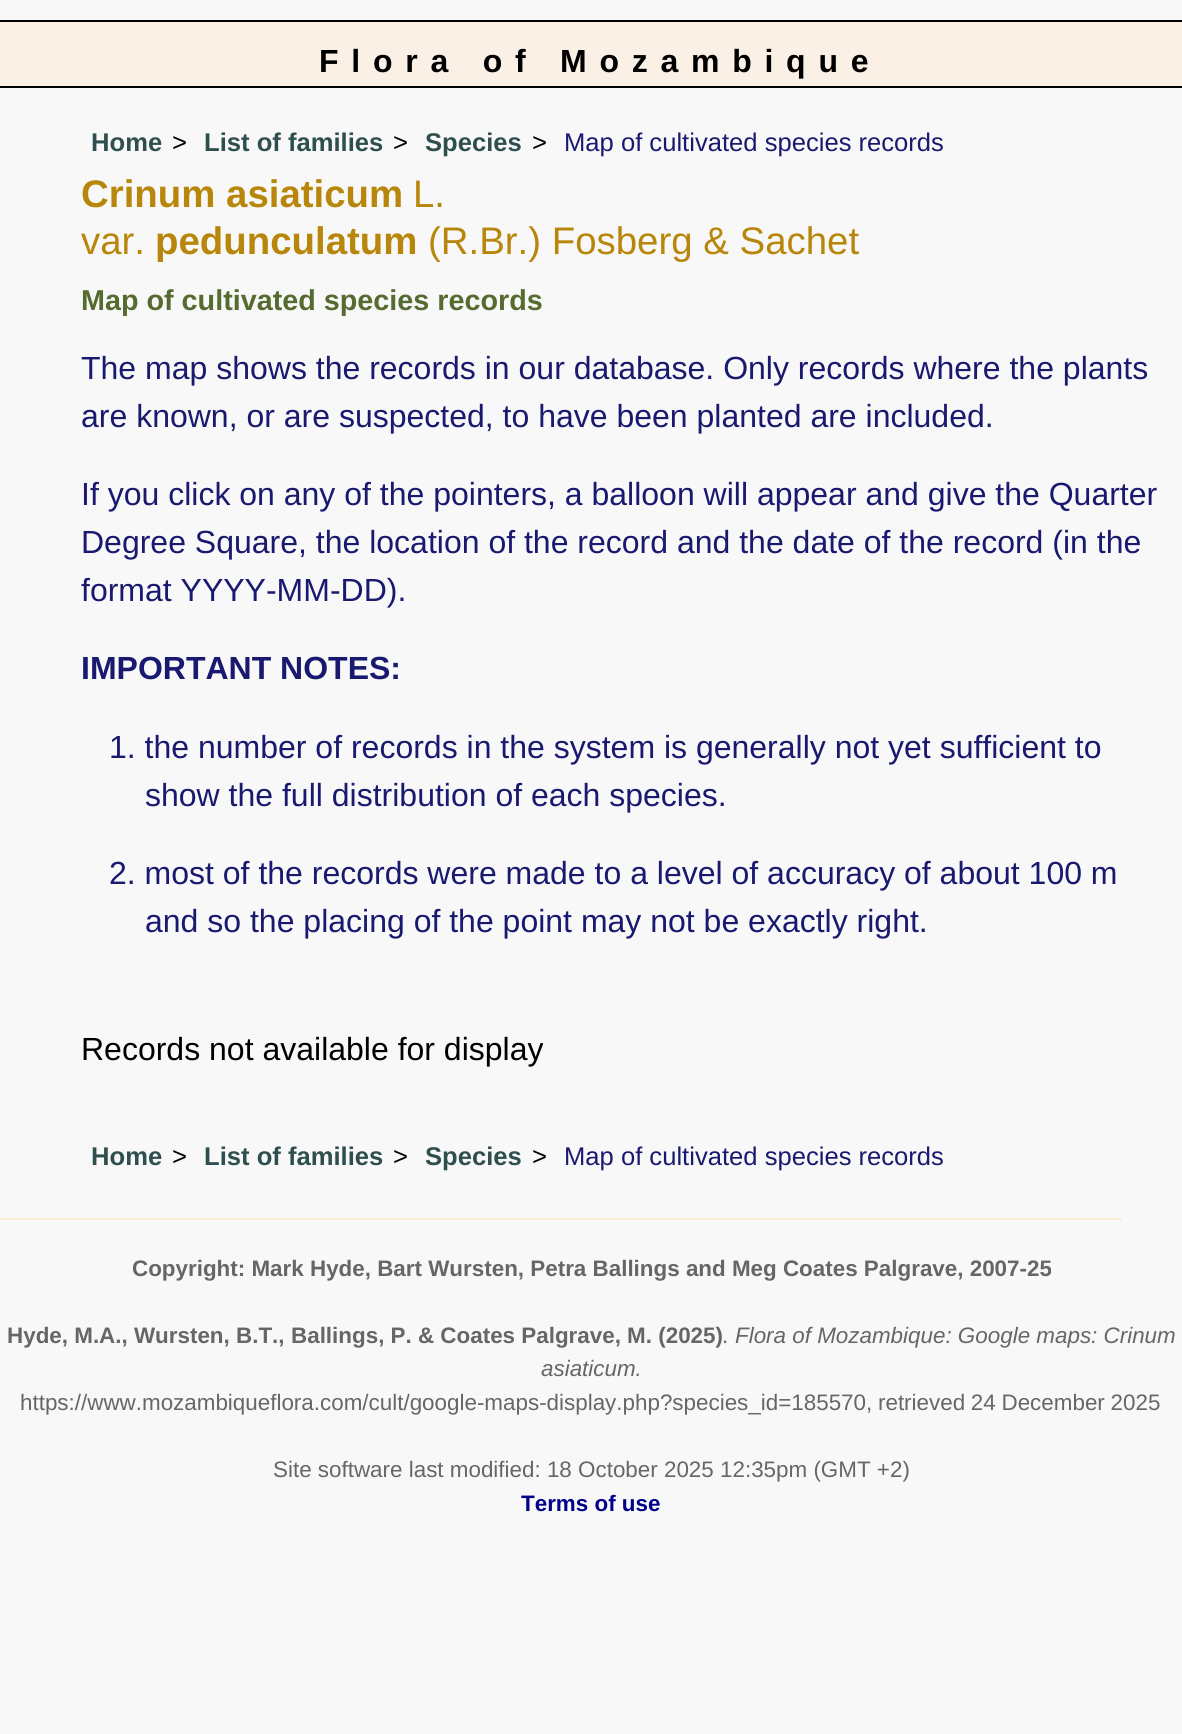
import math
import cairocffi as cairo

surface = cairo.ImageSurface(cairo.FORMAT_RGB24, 1182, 1734)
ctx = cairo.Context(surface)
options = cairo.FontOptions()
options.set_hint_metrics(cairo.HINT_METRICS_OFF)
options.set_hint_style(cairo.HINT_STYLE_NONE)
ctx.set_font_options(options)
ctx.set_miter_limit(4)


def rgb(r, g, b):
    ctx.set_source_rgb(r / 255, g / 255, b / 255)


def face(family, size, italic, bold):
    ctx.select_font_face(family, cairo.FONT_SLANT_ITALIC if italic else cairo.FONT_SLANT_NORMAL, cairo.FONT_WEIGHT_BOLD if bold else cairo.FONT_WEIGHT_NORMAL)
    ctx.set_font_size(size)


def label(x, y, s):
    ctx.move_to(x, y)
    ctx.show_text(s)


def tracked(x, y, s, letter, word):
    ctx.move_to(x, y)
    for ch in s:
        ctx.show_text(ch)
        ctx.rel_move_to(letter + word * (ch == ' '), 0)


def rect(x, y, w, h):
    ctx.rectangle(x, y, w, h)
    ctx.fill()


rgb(248, 248, 248)
ctx.paint()
rgb(250, 240, 230)
rect(0, 22, 1182, 64)
rgb(0, 0, 0)
rect(0, 20, 1182, 2)
rect(0, 86, 1182, 2)
face('Liberation Sans', 32, 0, 1)
tracked(319, 72, 'Flora of Mozambique', 12.75, 0)
face('Liberation Sans', 25.6, 0, 1)
rgb(47, 79, 79)
label(91, 151, 'Home')
face('Liberation Sans', 25.6, 0, 0)
rgb(0, 0, 0)
label(172, 151, '>')
face('Liberation Sans', 25.6, 0, 1)
rgb(47, 79, 79)
label(204, 151, 'List of families')
face('Liberation Sans', 25.6, 0, 0)
rgb(0, 0, 0)
label(393, 151, '>')
face('Liberation Sans', 25.6, 0, 1)
rgb(47, 79, 79)
label(425, 151, 'Species')
face('Liberation Sans', 25.6, 0, 0)
rgb(0, 0, 0)
label(532, 151, '>')
rgb(25, 25, 112)
label(564, 151, 'Map of cultivated species records')
face('Liberation Sans', 38.4, 0, 1)
rgb(184, 134, 11)
label(81, 207, 'Crinum asiaticum')
face('Liberation Sans', 38.4, 0, 0)
label(413, 207, 'L.')
label(81, 254, 'var.')
face('Liberation Sans', 38.4, 0, 1)
label(155, 254, 'pedunculatum')
face('Liberation Sans', 38.4, 0, 0)
label(428, 254, '(R.Br.) Fosberg & Sachet')
face('Liberation Sans', 28.75, 0, 1)
rgb(85, 107, 47)
label(81, 310, 'Map of cultivated species records')
face('Liberation Sans', 32, 0, 0)
rgb(25, 25, 112)
label(81, 379, 'The map shows the records in our database. Only records where the plants')
label(81, 427, 'are known, or are suspected, to have been planted are included.')
label(81, 505, 'If you click on any of the pointers, a balloon will appear and give the Quarter')
label(81, 553, 'Degree Square, the location of the record and the date of the record (in the')
label(81, 601, 'format YYYY-MM-DD).')
face('Liberation Sans', 32, 0, 1)
label(81, 679, 'IMPORTANT NOTES:')
face('Liberation Sans', 32, 0, 0)
label(109, 758, '1. the number of records in the system is generally not yet sufficient to')
label(145, 806, 'show the full distribution of each species.')
label(109, 884, '2. most of the records were made to a level of accuracy of about 100 m')
label(145, 932, 'and so the placing of the point may not be exactly right.')
rgb(0, 0, 0)
label(81, 1060, 'Records not available for display')
face('Liberation Sans', 25.6, 0, 1)
rgb(47, 79, 79)
label(91, 1165, 'Home')
face('Liberation Sans', 25.6, 0, 0)
rgb(0, 0, 0)
label(172, 1165, '>')
face('Liberation Sans', 25.6, 0, 1)
rgb(47, 79, 79)
label(204, 1165, 'List of families')
face('Liberation Sans', 25.6, 0, 0)
rgb(0, 0, 0)
label(393, 1165, '>')
face('Liberation Sans', 25.6, 0, 1)
rgb(47, 79, 79)
label(425, 1165, 'Species')
face('Liberation Sans', 25.6, 0, 0)
rgb(0, 0, 0)
label(532, 1165, '>')
rgb(25, 25, 112)
label(564, 1165, 'Map of cultivated species records')
rgb(250, 237, 212)
rect(0, 1218, 1122, 2)
face('Liberation Sans', 22.4, 0, 1)
rgb(102, 102, 102)
label(132, 1276, 'Copyright: Mark Hyde, Bart Wursten, Petra Ballings and Meg Coates Palgrave, 2007-25')
label(7, 1343, 'Hyde, M.A., Wursten, B.T.,')
label(291, 1343, 'Ballings, P. & Coates Palgrave, M. (2025)')
face('Liberation Sans', 22.4, 0, 0)
label(722, 1343, '.')
face('Liberation Sans', 22.4, 1, 0)
label(735, 1343, 'Flora of Mozambique: Google maps: Crinum')
label(541, 1376, 'asiaticum.')
face('Liberation Sans', 22.4, 0, 0)
tracked(20, 1410, 'https://www.mozambiqueflora.com/cult/google-maps-display.php?species_id=185570, retrieved 24 December 2025', 0, -0.5)
label(273, 1477, 'Site software last modified: 18 October 2025 12:35pm (GMT +2)')
face('Liberation Sans', 22.4, 0, 1)
rgb(0, 0, 139)
label(521, 1511, 'Terms of use')
surface.write_to_png('render.png')
